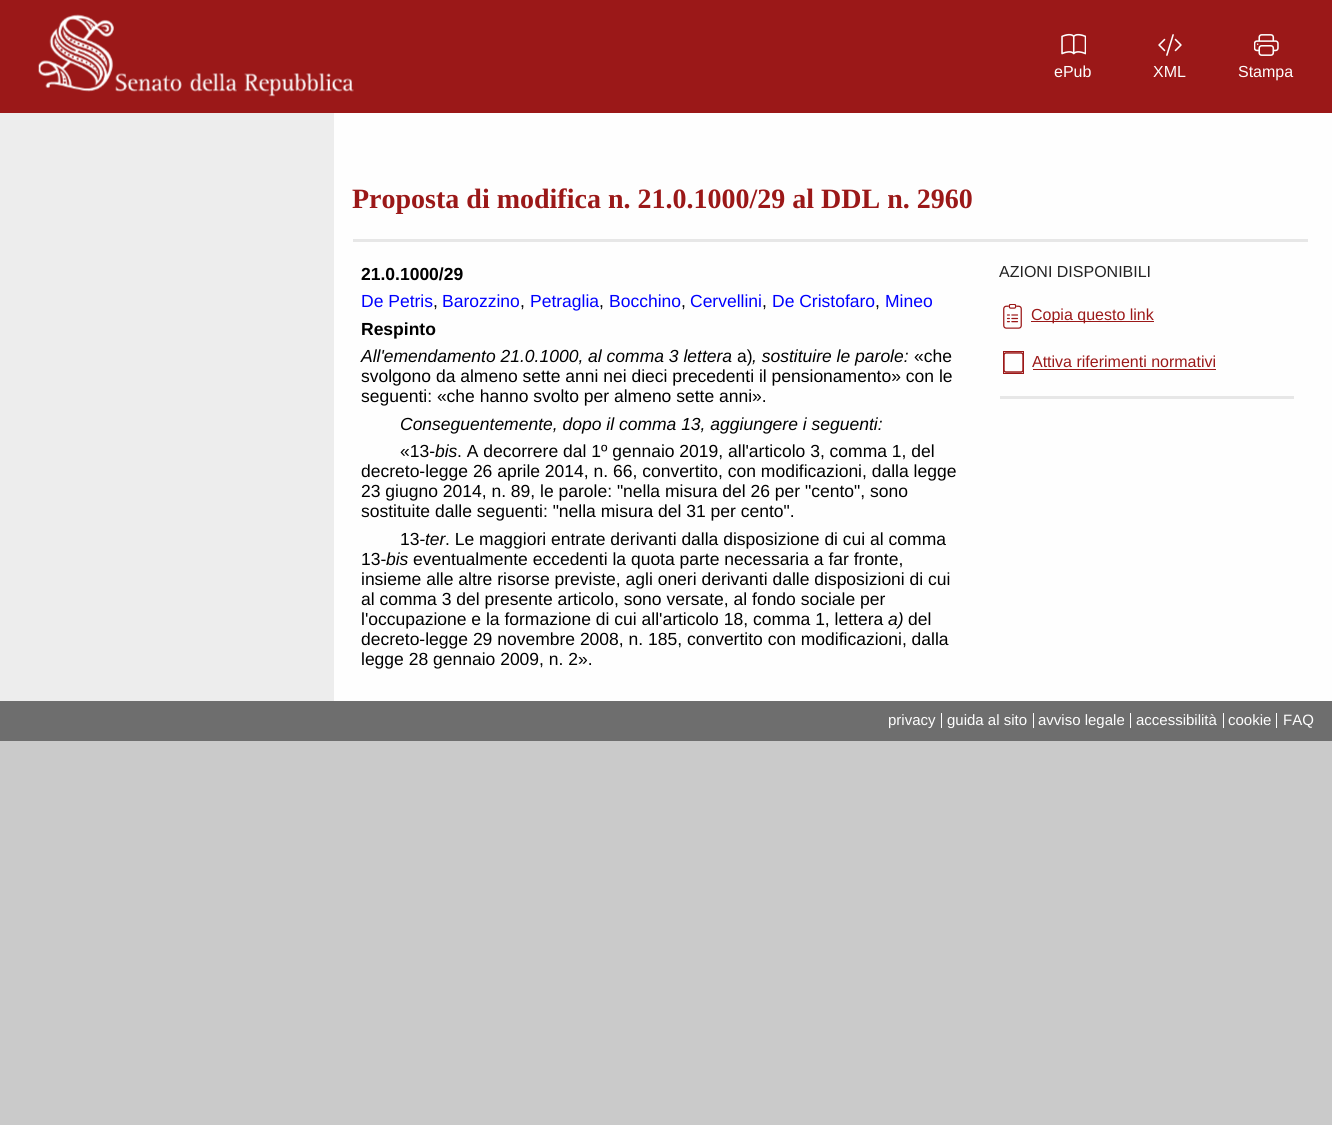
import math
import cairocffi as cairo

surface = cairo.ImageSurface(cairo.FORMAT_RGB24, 1332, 1125)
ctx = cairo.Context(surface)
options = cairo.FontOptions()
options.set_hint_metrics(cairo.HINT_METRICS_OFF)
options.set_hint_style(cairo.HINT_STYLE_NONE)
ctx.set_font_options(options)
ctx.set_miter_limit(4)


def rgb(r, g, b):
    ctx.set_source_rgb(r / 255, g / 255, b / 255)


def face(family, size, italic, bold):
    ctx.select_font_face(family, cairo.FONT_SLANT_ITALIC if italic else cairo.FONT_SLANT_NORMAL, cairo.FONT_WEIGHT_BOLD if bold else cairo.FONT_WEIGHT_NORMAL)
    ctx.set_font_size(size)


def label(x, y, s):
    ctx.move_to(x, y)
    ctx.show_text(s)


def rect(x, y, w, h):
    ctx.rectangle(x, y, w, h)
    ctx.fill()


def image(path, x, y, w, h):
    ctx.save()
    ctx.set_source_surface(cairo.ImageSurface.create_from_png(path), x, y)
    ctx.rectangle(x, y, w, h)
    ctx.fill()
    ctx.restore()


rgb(202, 202, 202)
ctx.paint()
rgb(155, 24, 24)
rect(0, 0, 1332, 113)
image('image0.png', 38, 14, 316, 83)
image('image1.png', 1061, 33, 25, 22)
face('Liberation Sans', 16, 0, 0)
rgb(254, 254, 254)
label(1054, 77, 'ePub')
image('image2.png', 1158, 34, 24, 22)
label(1153, 77, 'XML')
image('image3.png', 1254, 34, 25, 22)
label(1238, 77, 'Stampa')
rect(334, 113, 998, 588)
rgb(237, 237, 237)
rect(0, 113, 334, 588)
rgb(231, 231, 231)
rect(353, 239, 955, 3)
face('Liberation Serif', 28, 0, 1)
rgb(155, 24, 24)
label(352, 208, 'Proposta di modifica n. 21.0.1000/29 al DDL n. 2960')
face('Liberation Sans', 17.5, 0, 1)
rgb(0, 0, 0)
label(361, 280, '21.0.1000/29')
face('Liberation Sans', 17.5, 0, 0)
rgb(0, 0, 255)
label(361, 307, 'De Petris')
rgb(0, 0, 0)
label(433, 307, ',')
rgb(0, 0, 255)
label(442, 307, 'Barozzino')
rgb(0, 0, 0)
label(520, 307, ',')
rgb(0, 0, 255)
label(530, 307, 'Petraglia')
rgb(0, 0, 0)
label(599, 307, ',')
rgb(0, 0, 255)
label(609, 307, 'Bocchino')
rgb(0, 0, 0)
label(681, 307, ',')
rgb(0, 0, 255)
label(690, 307, 'Cervellini')
rgb(0, 0, 0)
label(762, 307, ',')
rgb(0, 0, 255)
label(772, 307, 'De Cristofaro')
rgb(0, 0, 0)
label(875, 307, ',')
rgb(0, 0, 255)
label(885, 307, 'Mineo')
face('Liberation Sans', 17.5, 0, 1)
rgb(0, 0, 0)
label(361, 335, 'Respinto')
face('Liberation Sans', 17.5, 1, 0)
label(361, 362, 'All\'emendamento 21.0.1000, al comma 3 lettera')
face('Liberation Sans', 17.5, 0, 0)
label(737, 362, 'a)')
face('Liberation Sans', 17.5, 1, 0)
label(752, 362, ', sostituire le parole:')
face('Liberation Sans', 17.5, 0, 0)
label(914, 362, '«che')
label(361, 382, 'svolgono da almeno sette anni nei dieci precedenti il pensionamento» con le')
label(361, 402, 'seguenti: «che hanno svolto per almeno sette anni».')
face('Liberation Sans', 17.5, 1, 0)
label(400, 430, 'Conseguentemente, dopo il comma 13, aggiungere i seguenti:')
face('Liberation Sans', 17.5, 0, 0)
label(400, 457, '«13-')
face('Liberation Sans', 17.5, 1, 0)
label(435, 457, 'bis')
face('Liberation Sans', 17.5, 0, 0)
label(457, 457, '. A decorrere dal 1º gennaio 2019, all\'articolo 3, comma 1, del')
label(361, 477, 'decreto-legge 26 aprile 2014, n. 66, convertito, con modificazioni, dalla legge')
label(361, 497, '23 giugno 2014, n. 89, le parole: "nella misura del 26 per "cento", sono')
label(361, 517, 'sostituite dalle seguenti: "nella misura del 31 per cento".')
label(400, 545, '13-')
face('Liberation Sans', 17.5, 1, 0)
label(425, 545, 'ter')
face('Liberation Sans', 17.5, 0, 0)
label(445, 545, '. Le maggiori entrate derivanti dalla disposizione di cui al comma')
label(361, 565, '13-')
face('Liberation Sans', 17.5, 1, 0)
label(386, 565, 'bis')
face('Liberation Sans', 17.5, 0, 0)
label(413, 565, 'eventualmente eccedenti la quota parte necessaria a far fronte,')
label(361, 585, 'insieme alle altre risorse previste, agli oneri derivanti dalle disposizioni di cui')
label(361, 605, 'al comma 3 del presente articolo, sono versate, al fondo sociale per')
label(361, 625, 'l\'occupazione e la formazione di cui all\'articolo 18, comma 1, lettera')
face('Liberation Sans', 17.5, 1, 0)
label(888, 625, 'a)')
face('Liberation Sans', 17.5, 0, 0)
label(908, 625, 'del')
label(361, 645, 'decreto-legge 29 novembre 2008, n. 185, convertito con modificazioni, dalla')
label(361, 665, 'legge 28 gennaio 2009, n. 2».')
rgb(231, 231, 231)
rect(1000, 396, 294, 3)
face('Liberation Sans', 16, 0, 0)
rgb(34, 34, 34)
label(999, 277, 'AZIONI DISPONIBILI')
image('image4.png', 1003, 304, 19, 25)
rgb(155, 24, 24)
rect(1031, 321, 123, 1)
label(1031, 320, 'Copia questo link')
image('image5.png', 1004, 352, 19, 21)
ctx.rectangle(1003.5, 351.5, 20, 22)
ctx.set_line_width(1)
ctx.stroke()
label(1032, 367, 'Attiva riferimenti normativi')
rect(1033, 369, 183, 1)
rgb(110, 110, 110)
rect(0, 701, 1332, 40)
face('Liberation Sans', 15, 0, 0)
rgb(254, 254, 254)
label(888, 725, 'privacy')
rect(941, 713, 1, 15)
label(947, 725, 'guida al sito')
rect(1033, 713, 1, 15)
label(1038, 725, 'avviso legale')
rect(1130, 713, 1, 15)
label(1136, 725, 'accessibilità')
rect(1223, 713, 1, 15)
label(1228, 725, 'cookie')
rect(1276, 713, 1, 15)
label(1283, 725, 'FAQ')
surface.write_to_png('render.png')
